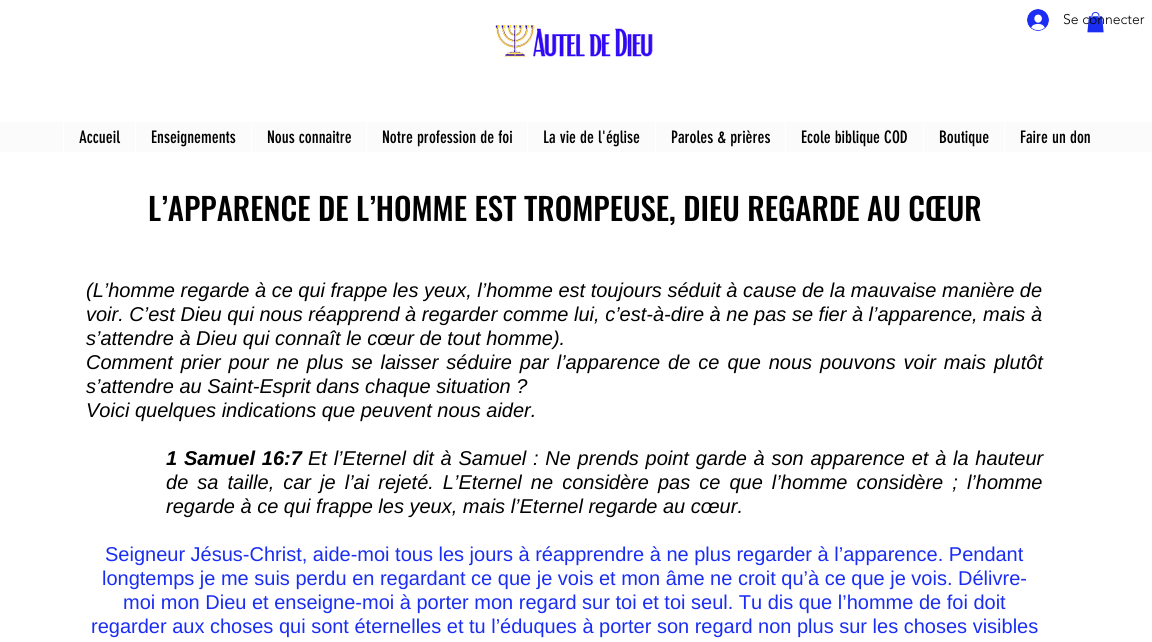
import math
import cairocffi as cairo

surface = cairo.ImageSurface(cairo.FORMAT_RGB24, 1152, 642)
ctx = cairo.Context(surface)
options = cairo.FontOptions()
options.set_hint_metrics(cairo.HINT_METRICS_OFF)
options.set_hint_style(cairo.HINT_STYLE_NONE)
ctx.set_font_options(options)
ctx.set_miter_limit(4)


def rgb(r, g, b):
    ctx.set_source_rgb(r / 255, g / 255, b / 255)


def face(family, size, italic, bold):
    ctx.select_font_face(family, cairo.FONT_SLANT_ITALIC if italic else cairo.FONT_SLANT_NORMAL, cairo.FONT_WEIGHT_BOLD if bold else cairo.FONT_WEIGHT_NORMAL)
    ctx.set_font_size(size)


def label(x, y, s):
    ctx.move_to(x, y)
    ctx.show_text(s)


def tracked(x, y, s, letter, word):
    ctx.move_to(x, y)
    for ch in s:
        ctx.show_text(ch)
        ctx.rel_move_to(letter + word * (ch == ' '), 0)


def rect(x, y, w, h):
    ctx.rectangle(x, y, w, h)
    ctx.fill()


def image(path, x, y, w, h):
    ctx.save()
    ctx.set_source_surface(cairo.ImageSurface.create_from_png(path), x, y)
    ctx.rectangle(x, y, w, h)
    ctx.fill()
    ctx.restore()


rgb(255, 255, 255)
ctx.paint()
image('image0.png', 1087, 12, 17, 21)
image('image1.png', 1027, 9, 22, 22)
face('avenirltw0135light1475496 Light', 14, 0, 0)
rgb(0, 0, 0)
label(1063, 24, 'Se connecter')
image('image2.png', 495, 25, 158, 32)
rgb(251, 251, 251)
rect(0, 122, 1152, 30)
rgb(255, 255, 255)
rect(63, 122, 1, 30)
face('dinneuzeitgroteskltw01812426', 17, 0, 0)
rgb(0, 0, 0)
label(79, 143, 'Accueil')
rgb(255, 255, 255)
rect(135, 122, 1, 30)
rgb(0, 0, 0)
label(151, 143, 'Enseignements')
rgb(255, 255, 255)
rect(251, 122, 1, 30)
rgb(0, 0, 0)
label(267, 143, 'Nous connaitre')
rgb(255, 255, 255)
rect(366, 122, 1, 30)
rgb(0, 0, 0)
label(382, 143, 'Notre profession de foi')
rgb(255, 255, 255)
rect(527, 122, 1, 30)
rgb(0, 0, 0)
label(543, 143, 'La vie de l\'église')
rgb(255, 255, 255)
rect(655, 122, 1, 30)
rgb(0, 0, 0)
label(671, 143, 'Paroles & prières')
rgb(255, 255, 255)
rect(785, 122, 1, 30)
rgb(0, 0, 0)
label(801, 143, 'Ecole biblique COD')
rgb(255, 255, 255)
rect(923, 122, 1, 30)
rgb(0, 0, 0)
label(939, 143, 'Boutique')
rgb(255, 255, 255)
rect(1004, 122, 1, 30)
rgb(0, 0, 0)
label(1020, 143, 'Faire un don')
face('Oswald Medium', 31, 0, 0)
label(148, 221, 'L’APPARENCE DE L’HOMME EST TROMPEUSE, DIEU REGARDE AU CŒUR')
face('Liberation Sans', 20, 1, 0)
label(86, 297, '(L’homme regarde à ce qui frappe les yeux, l’homme est toujours séduit à cause de la mauvaise manière de')
label(86, 321, 'voir. C’est Dieu qui nous réapprend à regarder comme lui, c’est-à-dire à ne pas se fier à l’apparence, mais à')
label(86, 345, 's’attendre à Dieu qui connaît le cœur de tout homme).')
tracked(86, 369, 'Comment prier pour ne plus se laisser séduire par l’apparence de ce que nous pouvons voir mais plutôt', 0, 2.4)
label(86, 393, 's’attendre au Saint-Esprit dans chaque situation ?')
label(86, 417, 'Voici quelques indications que peuvent nous aider.')
face('Liberation Sans', 20, 1, 1)
tracked(166, 465, '1 Samuel 16:7', 0, 1.2)
face('Liberation Sans', 20, 1, 0)
tracked(308, 465, 'Et l’Eternel dit à Samuel : Ne prends point garde à son apparence et à la hauteur', 0, 1.2)
tracked(166, 489, 'de sa taille, car je l’ai rejeté. L’Eternel ne considère pas ce que l’homme considère ; l’homme', 0, 3.5)
label(166, 513, 'regarde à ce qui frappe les yeux, mais l’Eternel regarde au cœur.')
face('Liberation Sans', 20, 0, 0)
rgb(26, 45, 243)
label(105, 561, 'Seigneur Jésus-Christ, aide-moi tous les jours à réapprendre à ne plus regarder à l’apparence. Pendant')
label(102, 585, 'longtemps je me suis perdu en regardant ce que je vois et mon âme ne croit qu’à ce que je vois. Délivre-')
label(123, 609, 'moi mon Dieu et enseigne-moi à porter mon regard sur toi et toi seul. Tu dis que l’homme de foi doit')
label(91, 633, 'regarder aux choses qui sont éternelles et tu l’éduques à porter son regard non plus sur les choses visibles')
surface.write_to_png('render.png')
